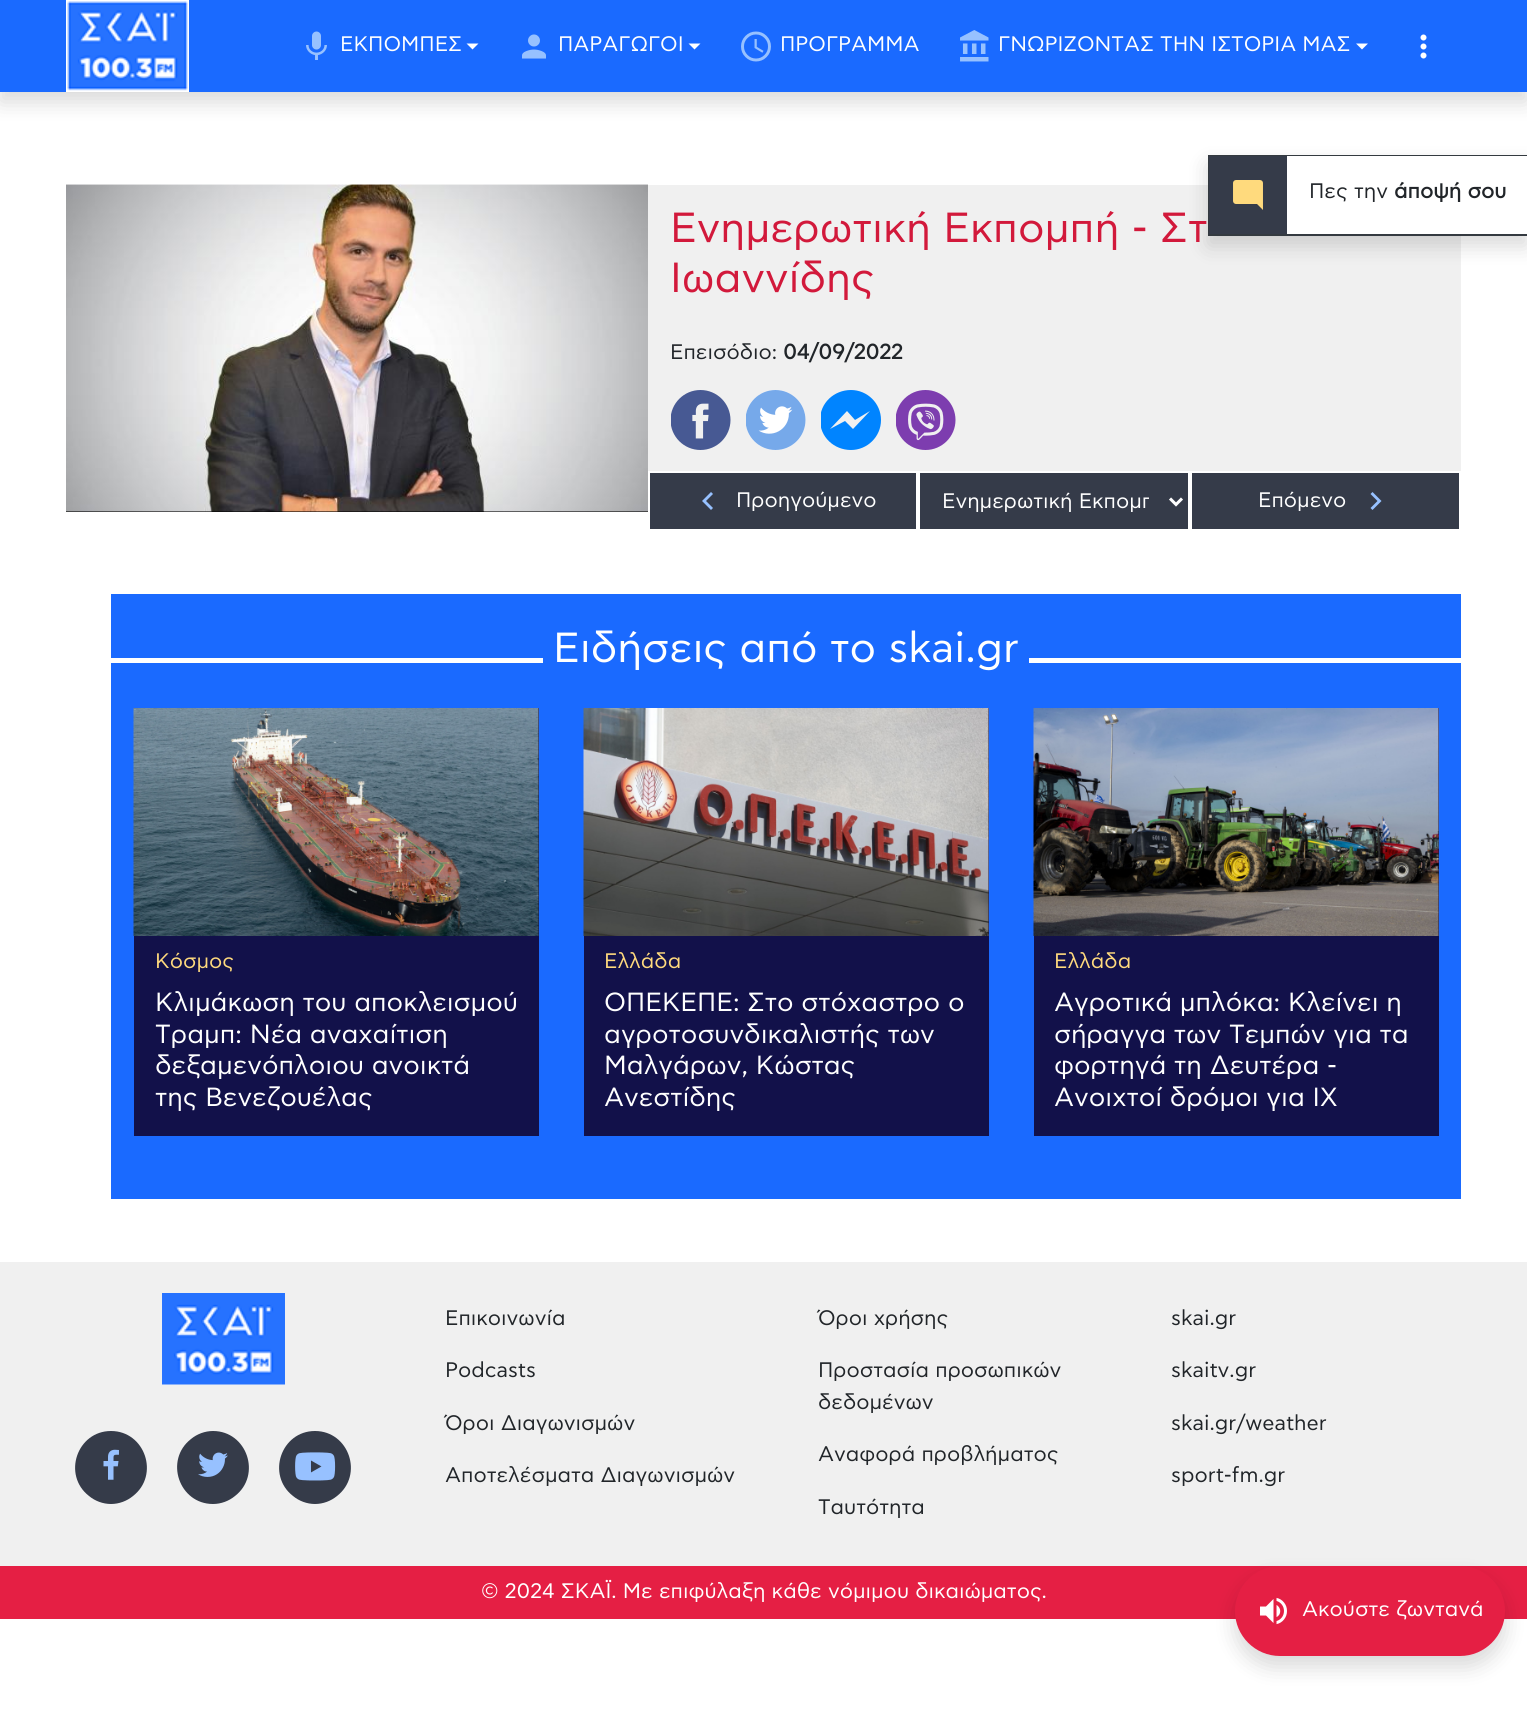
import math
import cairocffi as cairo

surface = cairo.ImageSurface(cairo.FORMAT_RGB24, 1527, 1716)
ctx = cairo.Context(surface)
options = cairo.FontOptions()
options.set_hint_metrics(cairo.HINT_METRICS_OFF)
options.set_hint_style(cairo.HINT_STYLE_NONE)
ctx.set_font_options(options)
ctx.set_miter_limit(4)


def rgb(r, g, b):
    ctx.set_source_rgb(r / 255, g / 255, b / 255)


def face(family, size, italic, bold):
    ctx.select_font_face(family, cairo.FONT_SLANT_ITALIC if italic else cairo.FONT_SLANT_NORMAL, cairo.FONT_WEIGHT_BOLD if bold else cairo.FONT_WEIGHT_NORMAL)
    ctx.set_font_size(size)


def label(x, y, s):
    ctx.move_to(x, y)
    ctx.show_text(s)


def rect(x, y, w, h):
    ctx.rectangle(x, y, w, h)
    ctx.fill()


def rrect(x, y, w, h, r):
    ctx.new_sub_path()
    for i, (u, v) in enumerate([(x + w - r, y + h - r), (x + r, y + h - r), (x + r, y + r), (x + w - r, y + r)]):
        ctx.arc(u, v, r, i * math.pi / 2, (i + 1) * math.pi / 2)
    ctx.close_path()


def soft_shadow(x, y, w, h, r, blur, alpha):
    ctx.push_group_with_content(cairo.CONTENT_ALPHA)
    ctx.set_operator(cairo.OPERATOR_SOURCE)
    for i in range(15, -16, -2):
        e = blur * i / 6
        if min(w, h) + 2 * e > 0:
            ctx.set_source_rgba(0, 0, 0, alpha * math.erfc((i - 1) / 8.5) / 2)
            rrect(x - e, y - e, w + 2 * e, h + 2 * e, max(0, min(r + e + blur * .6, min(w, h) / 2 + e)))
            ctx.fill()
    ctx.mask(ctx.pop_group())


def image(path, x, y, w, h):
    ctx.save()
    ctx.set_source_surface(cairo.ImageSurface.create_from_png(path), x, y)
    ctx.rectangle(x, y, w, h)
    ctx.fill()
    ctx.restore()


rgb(255, 255, 255)
ctx.paint()
rgb(0, 0, 0)
soft_shadow(0, 11, 1527, 91, 0, 10.5, 0.15)
rgb(26, 106, 255)
rect(0, 0, 1527, 92)
image('image0.png', 66, 0, 123, 92)
image('image1.png', 306, 31, 21, 29)
face('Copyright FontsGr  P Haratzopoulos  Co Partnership', 21, 0, 0)
rgb(255, 255, 255)
label(340, 51, 'ΕΚΠΟΜΠΕΣ')
ctx.new_path()
ctx.move_to(466.5, 43.5)
ctx.line_to(478.5, 43.5)
ctx.line_to(472.5, 49.5)
ctx.close_path()
ctx.fill()
image('image2.png', 522, 34, 24, 25)
label(558, 51, 'ΠΑΡΑΓΩΓΟΙ')
ctx.new_path()
ctx.move_to(688.5, 43.5)
ctx.line_to(700.5, 43.5)
ctx.line_to(694.5, 49.5)
ctx.close_path()
ctx.fill()
image('image3.png', 741, 31, 30, 31)
label(780, 51, 'ΠΡΟΓΡΑΜΜΑ')
image('image4.png', 960, 30, 29, 32)
label(998, 51, 'ΓΝΩΡΙΖΟΝΤΑΣ ΤΗΝ ΙΣΤΟΡΙΑ ΜΑΣ')
ctx.new_path()
ctx.move_to(1356, 43.5)
ctx.line_to(1368, 43.5)
ctx.line_to(1362, 49.5)
ctx.close_path()
ctx.fill()
image('image5.png', 1420, 34, 7, 25)
rgb(240, 240, 240)
rect(648, 185, 813, 286)
rgb(0, 0, 0)
soft_shadow(1208, 165, 319, 81, 0, 10.5, 0.15)
rgb(52, 58, 64)
rect(1208, 155, 319, 1)
rect(1208, 234, 319, 2)
rect(1208, 155, 2, 81)
rgb(53, 59, 73)
rect(1209, 156, 78, 78)
image('image6.png', 1233, 180, 30, 30)
rgb(255, 255, 255)
rect(1287, 156, 240, 78)
rgb(33, 37, 41)
label(1309, 198, 'Πες την')
face('Copyright FontsGr  P Haratzopoulos  Co Partnership', 21, 0, 1)
label(1394, 198, 'άποψή σου')
rgb(0, 0, 0)
rect(66, 511, 582, 1)
image('image7.png', 66, 184, 582, 328)
image('image8.png', 66, 184, 582, 328)
face('Copyright FontsGr  P Haratzopoulos  Co Partnership', 42, 0, 0)
rgb(210, 25, 59)
label(670, 242, 'Ενημερωτική Εκπομπή - Στ')
label(670, 292, 'Ιωαννίδης')
face('Copyright FontsGr  P Haratzopoulos  Co Partnership', 21, 0, 0)
rgb(33, 37, 41)
label(670, 359, 'Επεισόδιο:')
face('Copyright FontsGr  P Haratzopoulos  Co Partnership', 21, 0, 1)
label(783, 359, '04/09/2022')
image('image9.png', 671, 390, 60, 60)
image('image10.png', 746, 390, 60, 60)
ctx.save()
ctx.rectangle(821, 390, 60, 60)
ctx.clip()
rgb(0, 132, 255)
ctx.new_path()
ctx.move_to(851, 390)
ctx.curve_to(834, 390, 820, 403, 820, 420)
ctx.curve_to(820, 437, 834, 450, 851, 450)
ctx.curve_to(867, 450, 881, 437, 881, 420)
ctx.curve_to(881, 403, 867, 390, 851, 390)
ctx.close_path()
ctx.move_to(853, 429)
ctx.line_to(845, 421)
ctx.line_to(830, 429)
ctx.line_to(847, 411)
ctx.line_to(855, 420)
ctx.line_to(870, 411)
ctx.close_path()
ctx.fill()
ctx.restore()
image('image11.png', 896, 390, 60, 60)
rgb(53, 59, 73)
rect(650, 473, 266, 56)
rgb(151, 193, 255)
ctx.new_path()
ctx.move_to(713, 508)
ctx.line_to(711, 510)
ctx.line_to(702, 501)
ctx.line_to(711, 492)
ctx.line_to(713, 494)
ctx.line_to(706, 501)
ctx.close_path()
ctx.fill()
face('Copyright FontsGr  P Haratzopoulos  Co Partnership', 21, 0, 0)
rgb(255, 255, 255)
label(736, 507, 'Προηγούμενο')
rgb(53, 59, 73)
rect(920, 473, 268, 56)
ctx.new_path()
ctx.move_to(1170, 498.5)
ctx.line_to(1176, 504.5)
ctx.line_to(1182, 498.5)
rgb(255, 255, 255)
ctx.set_line_width(3)
ctx.stroke()
ctx.save()
ctx.rectangle(942, 486, 207, 30)
ctx.clip()
label(942, 508, 'Ενημερωτική Εκπομπ')
ctx.restore()
rgb(53, 59, 73)
rect(1192, 473, 267, 56)
rgb(255, 255, 255)
label(1258, 507, 'Επόμενο')
rgb(151, 193, 255)
ctx.new_path()
ctx.move_to(1370.5, 508)
ctx.line_to(1377.5, 501)
ctx.line_to(1370.5, 494)
ctx.line_to(1372.5, 492)
ctx.line_to(1381.5, 501)
ctx.line_to(1372.5, 510)
ctx.close_path()
ctx.fill()
rgb(26, 106, 255)
rect(111, 594, 1350, 605)
rgb(255, 255, 255)
rect(111, 658, 1350, 5)
rgb(26, 106, 255)
rect(543, 658, 486, 5)
face('Copyright FontsGr  P Haratzopoulos  Co Partnership', 42, 0, 0)
rgb(255, 255, 255)
label(553, 662, 'Ειδήσεις από το skai.gr')
rgb(18, 17, 74)
rect(134, 708, 405, 428)
image('image12.png', 133, 708, 406, 228)
face('Copyright FontsGr  P Haratzopoulos  Co Partnership', 21, 0, 0)
rgb(255, 218, 125)
label(155, 968, 'Κόσμος')
face('Copyright FontsGr  P Haratzopoulos  Co Partnership', 26.25, 0, 0)
rgb(255, 255, 255)
label(155, 1011, 'Κλιμάκωση του αποκλεισμού')
label(155, 1043, 'Τραμπ: Νέα αναχαίτιση')
label(155, 1074, 'δεξαμενόπλοιου ανοικτά')
label(155, 1106, 'της Βενεζουέλας')
rgb(18, 17, 74)
rect(584, 708, 405, 428)
image('image13.png', 583, 708, 406, 228)
face('Copyright FontsGr  P Haratzopoulos  Co Partnership', 21, 0, 0)
rgb(255, 218, 125)
label(604, 968, 'Ελλάδα')
face('Copyright FontsGr  P Haratzopoulos  Co Partnership', 26.25, 0, 0)
rgb(255, 255, 255)
label(604, 1011, 'ΟΠΕΚΕΠΕ: Στο στόχαστρο ο')
label(604, 1043, 'αγροτοσυνδικαλιστής των')
label(604, 1074, 'Μαλγάρων, Κώστας')
label(604, 1106, 'Ανεστίδης')
rgb(18, 17, 74)
rect(1034, 708, 405, 428)
image('image14.png', 1033, 708, 406, 228)
face('Copyright FontsGr  P Haratzopoulos  Co Partnership', 21, 0, 0)
rgb(255, 218, 125)
label(1054, 968, 'Ελλάδα')
face('Copyright FontsGr  P Haratzopoulos  Co Partnership', 26.25, 0, 0)
rgb(255, 255, 255)
label(1054, 1011, 'Αγροτικά μπλόκα: Κλείνει η')
label(1054, 1043, 'σήραγγα των Τεμπών για τα')
label(1054, 1074, 'φορτηγά τη Δευτέρα -')
label(1054, 1106, 'Ανοιχτοί δρόμοι για ΙΧ')
rgb(240, 240, 240)
rect(0, 1262, 1527, 304)
image('image15.png', 162, 1293, 123, 92)
rgb(53, 59, 73)
ctx.new_path()
ctx.move_to(111, 1431)
ctx.curve_to(77, 1431, 62, 1475, 89, 1496)
ctx.curve_to(95, 1501, 103, 1504, 111, 1504)
ctx.curve_to(119, 1504, 127, 1501, 133, 1496)
ctx.curve_to(160, 1475, 145, 1431, 111, 1431)
ctx.close_path()
ctx.fill()
image('image16.png', 103, 1449, 16, 31)
ctx.new_path()
ctx.move_to(213, 1431)
ctx.curve_to(205, 1431, 197, 1434, 191, 1439)
ctx.curve_to(164, 1460, 179, 1504, 213, 1504)
ctx.curve_to(221, 1504, 229, 1501, 235, 1496)
ctx.curve_to(262, 1475, 247, 1431, 213, 1431)
ctx.close_path()
ctx.fill()
image('image17.png', 198, 1452, 30, 25)
ctx.new_path()
ctx.move_to(315, 1431)
ctx.curve_to(281, 1431, 266, 1475, 293, 1496)
ctx.curve_to(299, 1501, 307, 1504, 315, 1504)
ctx.curve_to(323, 1504, 331, 1501, 337, 1496)
ctx.curve_to(364, 1475, 349, 1431, 315, 1431)
ctx.close_path()
ctx.fill()
image('image18.png', 295, 1452, 41, 29)
face('Copyright FontsGr  P Haratzopoulos  Co Partnership', 21, 0, 0)
rgb(33, 37, 41)
label(445, 1325, 'Επικοινωνία')
label(445, 1377, 'Podcasts')
label(445, 1430, 'Όροι Διαγωνισμών')
label(445, 1482, 'Αποτελέσματα Διαγωνισμών')
label(818, 1325, 'Όροι χρήσης')
label(818, 1377, 'Προστασία προσωπικών')
label(818, 1409, 'δεδομένων')
label(818, 1461, 'Αναφορά προβλήματος')
label(818, 1514, 'Ταυτότητα')
label(1171, 1325, 'skai.gr')
label(1171, 1377, 'skaitv.gr')
label(1171, 1430, 'skai.gr/weather')
label(1171, 1482, 'sport-fm.gr')
rgb(229, 31, 68)
rect(0, 1566, 1527, 53)
rgb(255, 255, 255)
label(481, 1598, '© 2024 ΣΚΑΪ. Με επιφύλαξη κάθε νόμιμου δικαιώματος.')
rgb(0, 0, 0)
soft_shadow(1235, 1577, 270, 90, 45, 10.5, 0.15)
rgb(229, 31, 68)
rrect(1235, 1566, 270, 90, 45)
ctx.fill()
image('image19.png', 1260, 1597, 27, 28)
rgb(255, 255, 255)
label(1302, 1616, 'Ακούστε ζωντανά')
surface.write_to_png('render.png')
